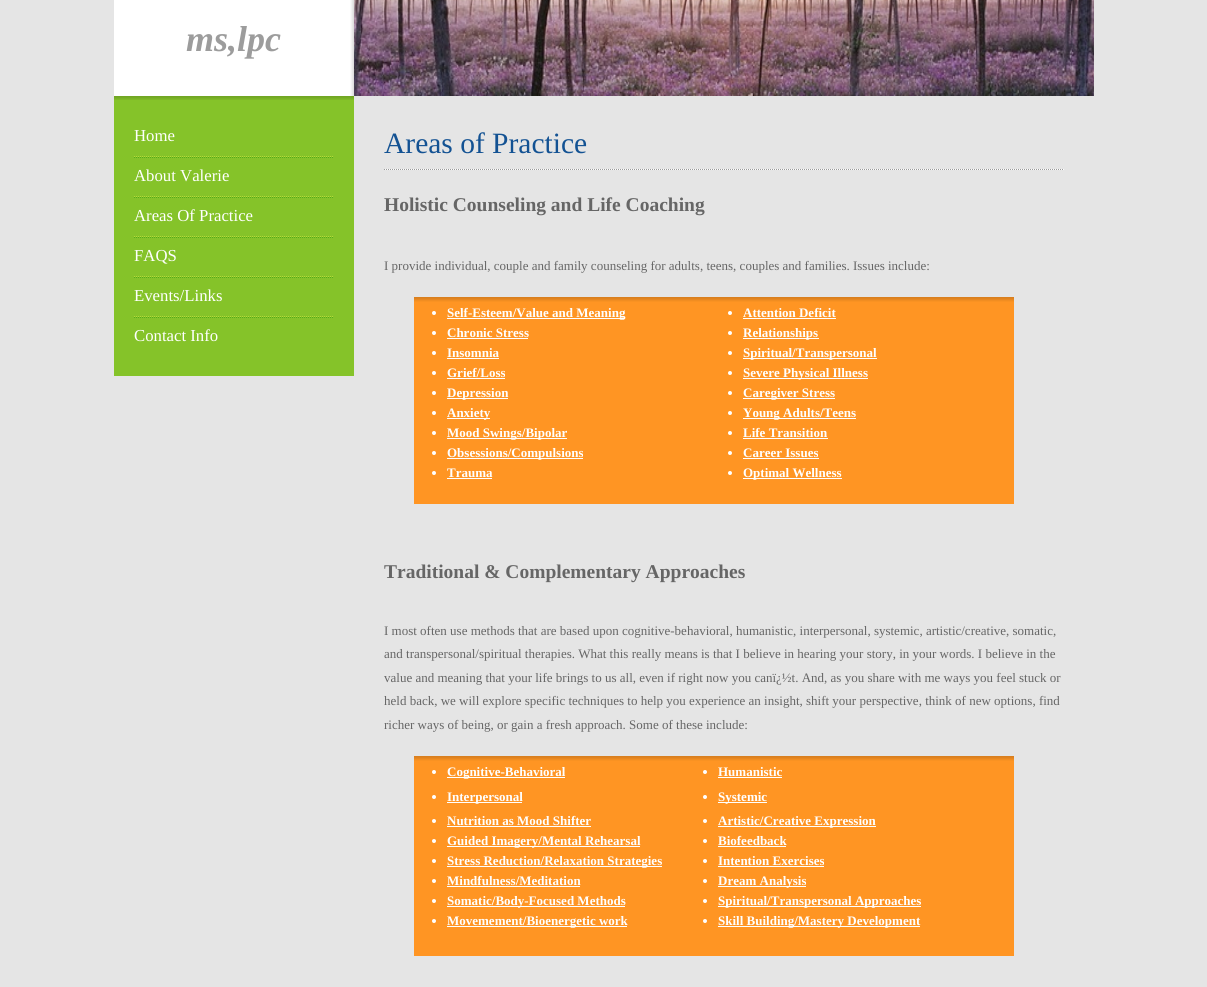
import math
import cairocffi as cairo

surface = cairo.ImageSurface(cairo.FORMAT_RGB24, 1207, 987)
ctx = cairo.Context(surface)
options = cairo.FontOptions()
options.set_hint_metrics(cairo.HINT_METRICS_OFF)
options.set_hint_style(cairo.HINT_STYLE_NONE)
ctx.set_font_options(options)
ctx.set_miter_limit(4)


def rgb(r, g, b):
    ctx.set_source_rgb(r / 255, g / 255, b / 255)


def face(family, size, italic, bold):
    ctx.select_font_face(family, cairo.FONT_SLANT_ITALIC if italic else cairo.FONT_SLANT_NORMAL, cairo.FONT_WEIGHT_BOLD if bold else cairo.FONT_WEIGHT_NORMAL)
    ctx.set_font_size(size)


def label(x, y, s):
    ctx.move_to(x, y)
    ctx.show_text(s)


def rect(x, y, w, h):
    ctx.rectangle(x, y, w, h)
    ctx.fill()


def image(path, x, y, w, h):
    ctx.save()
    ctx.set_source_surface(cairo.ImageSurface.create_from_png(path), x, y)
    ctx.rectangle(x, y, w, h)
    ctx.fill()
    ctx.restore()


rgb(229, 229, 229)
ctx.paint()
rgb(255, 255, 255)
rect(114, 0, 236, 96)
image('image0.png', 350, 0, 4, 96)
face('Liberation Serif', 36, 1, 1)
rgb(156, 156, 156)
label(186, 51, 'ms,lpc')
rgb(133, 195, 41)
rect(114, 100, 240, 276)
image('image1.png', 114, 96, 240, 4)
face('Liberation Serif', 16.75, 0, 0)
rgb(255, 255, 255)
label(134, 141, 'Home')
image('image2.png', 134, 156, 199, 2)
label(134, 181, 'About Valerie')
image('image2.png', 134, 196, 199, 2)
label(134, 221, 'Areas Of Practice')
image('image2.png', 134, 236, 199, 2)
label(134, 261, 'FAQS')
image('image2.png', 134, 276, 199, 2)
label(134, 301, 'Events/Links')
image('image2.png', 134, 316, 199, 2)
label(134, 341, 'Contact Info')
image('image3.png', 354, 0, 740, 96)
image('image4.png', 384, 169, 680, 1)
face('Liberation Serif', 29.5, 0, 0)
rgb(19, 82, 147)
label(384, 153, 'Areas of Practice')
face('Liberation Serif', 19.5, 0, 1)
rgb(102, 102, 102)
label(384, 211, 'Holistic Counseling and Life Coaching')
face('Liberation Serif', 13, 0, 0)
label(384, 270, 'I provide individual, couple and family counseling for adults, teens, couples and families. Issues include:')
rgb(255, 149, 35)
rect(414, 302, 600, 202)
image('image5.png', 414, 297, 600, 5)
rgb(255, 255, 255)
ctx.arc(434, 313, 2, 0, 2 * math.pi)
ctx.fill()
rect(447, 318, 178, 1)
face('Liberation Serif', 13, 0, 1)
label(447, 317, 'Self-Esteem/Value and Meaning')
ctx.new_path()
ctx.arc(730, 313, 2, 0, 2 * math.pi)
ctx.fill()
label(743, 317, 'Attention Deficit')
rect(743, 318, 93, 1)
ctx.new_path()
ctx.arc(434, 333, 2, 0, 2 * math.pi)
ctx.fill()
label(447, 337, 'Chronic Stress')
rect(447, 338, 81, 1)
ctx.new_path()
ctx.arc(730, 333, 2, 0, 2 * math.pi)
ctx.fill()
rect(743, 338, 76, 1)
label(743, 337, 'Relationships')
ctx.new_path()
ctx.arc(434, 353, 2, 0, 2 * math.pi)
ctx.fill()
label(447, 357, 'Insomnia')
rect(447, 358, 52, 1)
ctx.new_path()
ctx.arc(730, 353, 2, 0, 2 * math.pi)
ctx.fill()
rect(743, 358, 134, 1)
label(743, 357, 'Spiritual/Transpersonal')
ctx.new_path()
ctx.arc(434, 373, 2, 0, 2 * math.pi)
ctx.fill()
label(447, 377, 'Grief/Loss')
rect(447, 378, 58, 1)
ctx.new_path()
ctx.arc(730, 373, 2, 0, 2 * math.pi)
ctx.fill()
rect(743, 378, 125, 1)
label(743, 377, 'Severe Physical Illness')
ctx.new_path()
ctx.arc(434, 393, 2, 0, 2 * math.pi)
ctx.fill()
rect(447, 398, 61, 1)
label(447, 397, 'Depression')
ctx.new_path()
ctx.arc(730, 393, 2, 0, 2 * math.pi)
ctx.fill()
rect(743, 398, 92, 1)
label(743, 397, 'Caregiver Stress')
ctx.new_path()
ctx.arc(434, 413, 2, 0, 2 * math.pi)
ctx.fill()
rect(447, 418, 43, 1)
label(447, 417, 'Anxiety')
ctx.new_path()
ctx.arc(730, 413, 2, 0, 2 * math.pi)
ctx.fill()
rect(743, 418, 113, 1)
label(743, 417, 'Young Adults/Teens')
ctx.new_path()
ctx.arc(434, 433, 2, 0, 2 * math.pi)
ctx.fill()
rect(447, 438, 120, 1)
label(447, 437, 'Mood Swings/Bipolar')
ctx.new_path()
ctx.arc(730, 433, 2, 0, 2 * math.pi)
ctx.fill()
label(743, 437, 'Life Transition')
rect(743, 438, 85, 1)
ctx.new_path()
ctx.arc(434, 453, 2, 0, 2 * math.pi)
ctx.fill()
rect(447, 458, 136, 1)
label(447, 457, 'Obsessions/Compulsions')
ctx.new_path()
ctx.arc(730, 453, 2, 0, 2 * math.pi)
ctx.fill()
label(743, 457, 'Career Issues')
rect(743, 458, 76, 1)
ctx.new_path()
ctx.arc(434, 473, 2, 0, 2 * math.pi)
ctx.fill()
label(447, 477, 'Trauma')
rect(447, 478, 45, 1)
ctx.new_path()
ctx.arc(730, 473, 2, 0, 2 * math.pi)
ctx.fill()
rect(743, 478, 99, 1)
label(743, 477, 'Optimal Wellness')
face('Liberation Serif', 19.5, 0, 1)
rgb(102, 102, 102)
label(384, 578, 'Traditional & Complementary Approaches')
face('Liberation Serif', 13, 0, 0)
label(384, 635, 'I most often use methods that are based upon cognitive-behavioral, humanistic, interpersonal, systemic, artistic/creative, somatic,')
label(384, 658, 'and transpersonal/spiritual therapies. What this really means is that I believe in hearing your story, in your words. I believe in the')
label(384, 682, 'value and meaning that your life brings to us all, even if right now you canï¿½t. And, as you share with me ways you feel stuck or')
label(384, 705, 'held back, we will explore specific techniques to help you experience an insight, shift your perspective, think of new options, find')
label(384, 729, 'richer ways of being, or gain a fresh approach. Some of these include:')
rgb(255, 149, 35)
rect(414, 761, 600, 195)
image('image5.png', 414, 756, 600, 5)
rgb(255, 255, 255)
ctx.arc(434, 772, 2, 0, 2 * math.pi)
ctx.fill()
rect(447, 777, 118, 1)
face('Liberation Serif', 13, 0, 1)
label(447, 776, 'Cognitive-Behavioral')
ctx.new_path()
ctx.arc(705, 772, 2, 0, 2 * math.pi)
ctx.fill()
label(718, 776, 'Humanistic')
rect(718, 777, 64, 1)
ctx.new_path()
ctx.arc(434, 797, 2, 0, 2 * math.pi)
ctx.fill()
rect(447, 802, 75, 1)
label(447, 801, 'Interpersonal')
ctx.new_path()
ctx.arc(705, 797, 2, 0, 2 * math.pi)
ctx.fill()
rect(718, 802, 49, 1)
label(718, 801, 'Systemic')
ctx.new_path()
ctx.arc(434, 821, 2, 0, 2 * math.pi)
ctx.fill()
label(447, 825, 'Nutrition as Mood Shifter')
rect(447, 826, 144, 1)
ctx.new_path()
ctx.arc(705, 821, 2, 0, 2 * math.pi)
ctx.fill()
rect(718, 826, 158, 1)
label(718, 825, 'Artistic/Creative Expression')
ctx.new_path()
ctx.arc(434, 841, 2, 0, 2 * math.pi)
ctx.fill()
rect(447, 846, 193, 1)
label(447, 845, 'Guided Imagery/Mental Rehearsal')
ctx.new_path()
ctx.arc(705, 841, 2, 0, 2 * math.pi)
ctx.fill()
label(718, 845, 'Biofeedback')
rect(718, 846, 68, 1)
ctx.new_path()
ctx.arc(434, 861, 2, 0, 2 * math.pi)
ctx.fill()
rect(447, 866, 215, 1)
label(447, 865, 'Stress Reduction/Relaxation Strategies')
ctx.new_path()
ctx.arc(705, 861, 2, 0, 2 * math.pi)
ctx.fill()
label(718, 865, 'Intention Exercises')
rect(718, 866, 106, 1)
ctx.new_path()
ctx.arc(434, 881, 2, 0, 2 * math.pi)
ctx.fill()
label(447, 885, 'Mindfulness/Meditation')
rect(447, 886, 133, 1)
ctx.new_path()
ctx.arc(705, 881, 2, 0, 2 * math.pi)
ctx.fill()
rect(718, 886, 88, 1)
label(718, 885, 'Dream Analysis')
ctx.new_path()
ctx.arc(434, 901, 2, 0, 2 * math.pi)
ctx.fill()
rect(447, 906, 178, 1)
label(447, 905, 'Somatic/Body-Focused Methods')
ctx.new_path()
ctx.arc(705, 901, 2, 0, 2 * math.pi)
ctx.fill()
rect(718, 906, 203, 1)
label(718, 905, 'Spiritual/Transpersonal Approaches')
ctx.new_path()
ctx.arc(434, 921, 2, 0, 2 * math.pi)
ctx.fill()
rect(447, 926, 180, 1)
label(447, 925, 'Movemement/Bioenergetic work')
ctx.new_path()
ctx.arc(705, 921, 2, 0, 2 * math.pi)
ctx.fill()
rect(718, 926, 202, 1)
label(718, 925, 'Skill Building/Mastery Development')
surface.write_to_png('render.png')
